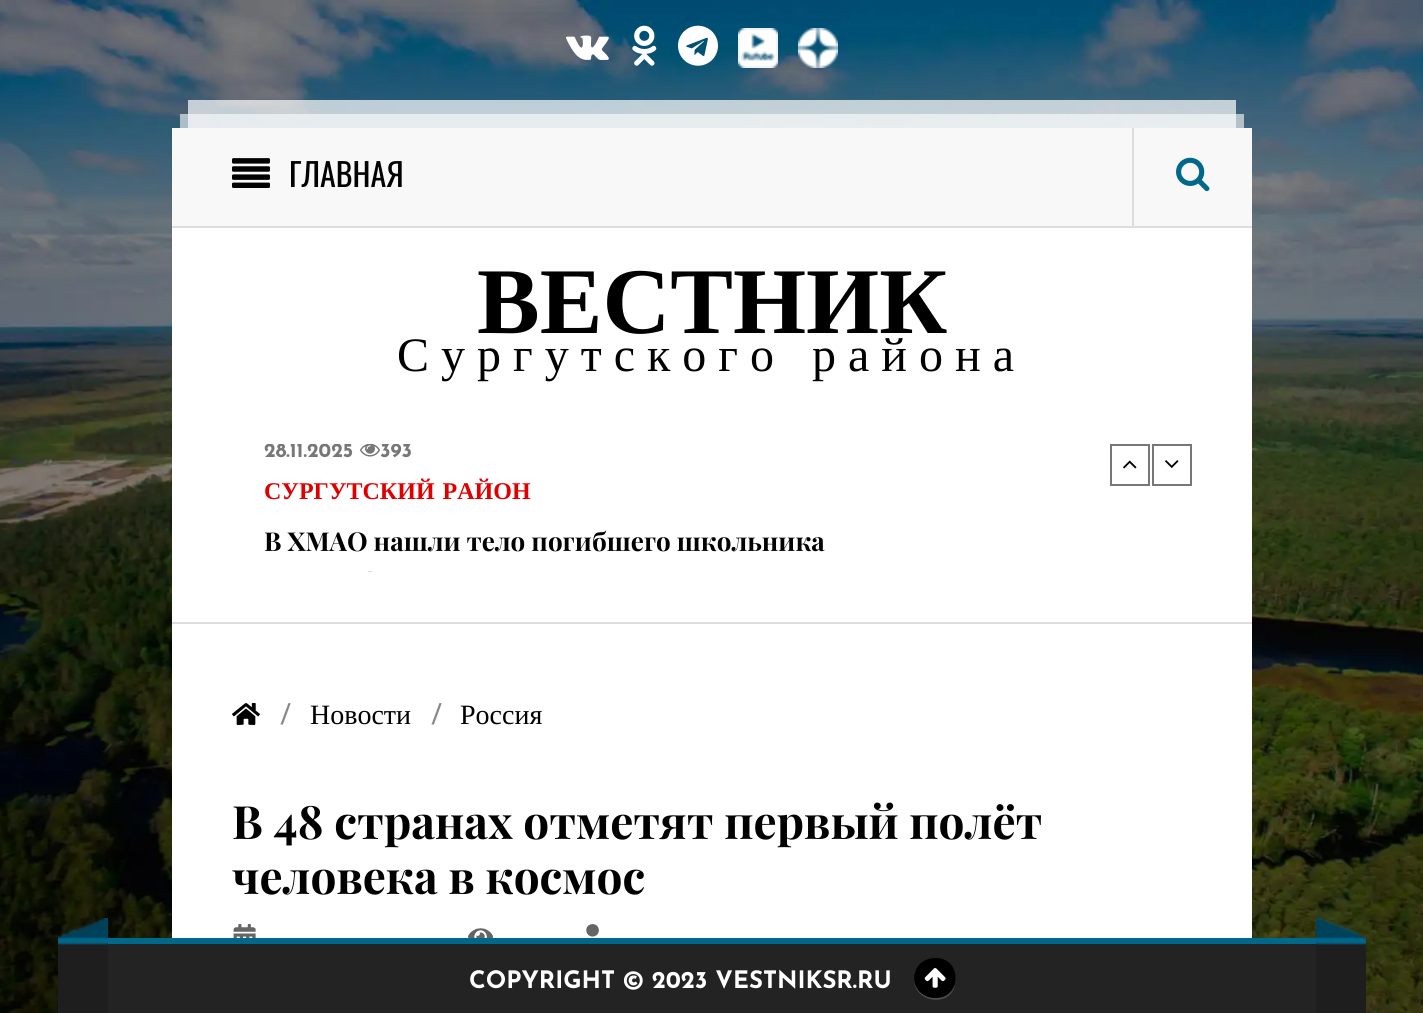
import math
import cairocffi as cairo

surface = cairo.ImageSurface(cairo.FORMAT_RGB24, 1423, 1013)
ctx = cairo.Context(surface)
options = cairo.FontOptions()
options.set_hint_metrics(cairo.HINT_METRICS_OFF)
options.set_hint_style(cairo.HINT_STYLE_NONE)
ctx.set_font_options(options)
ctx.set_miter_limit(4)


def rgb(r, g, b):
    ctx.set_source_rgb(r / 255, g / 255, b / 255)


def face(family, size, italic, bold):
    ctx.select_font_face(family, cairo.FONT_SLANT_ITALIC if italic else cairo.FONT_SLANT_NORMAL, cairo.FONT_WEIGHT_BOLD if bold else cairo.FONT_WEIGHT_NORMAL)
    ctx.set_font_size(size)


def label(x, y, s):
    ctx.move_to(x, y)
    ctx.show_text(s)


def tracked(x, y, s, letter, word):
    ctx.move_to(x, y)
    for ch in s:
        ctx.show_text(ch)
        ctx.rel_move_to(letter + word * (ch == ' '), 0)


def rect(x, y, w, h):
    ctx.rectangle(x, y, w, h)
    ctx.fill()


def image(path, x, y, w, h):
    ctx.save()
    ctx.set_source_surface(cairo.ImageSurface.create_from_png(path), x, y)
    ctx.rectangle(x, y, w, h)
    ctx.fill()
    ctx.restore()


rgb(255, 255, 255)
ctx.paint()
image('image0.png', 0, 0, 1423, 1013)
image('image1.png', 566, 35, 43, 25)
image('image2.png', 632, 25, 25, 41)
image('image3.png', 678, 25, 40, 41)
image('image4.png', 738, 28, 40, 40)
image('image5.png', 798, 28, 40, 40)
rgb(255, 255, 255)
rect(172, 228, 1080, 710)
ctx.set_source_rgba(1, 1, 1, 0.6)
rect(180, 114, 1064, 14)
ctx.set_source_rgba(1, 1, 1, 0.7)
rect(188, 100, 1048, 28)
rgb(248, 248, 248)
rect(172, 128, 1080, 98)
rgb(221, 221, 221)
rect(172, 226, 1080, 2)
image('image6.png', 232, 158, 38, 30)
face('Oswald', 32, 0, 0)
rgb(0, 0, 0)
label(289, 187, 'ГЛАВНАЯ')
rgb(221, 221, 221)
rect(1132, 128, 2, 100)
image('image7.png', 1176, 157, 34, 35)
rect(172, 622, 1080, 2)
face('Liberation Serif', 94, 0, 1)
rgb(0, 0, 0)
label(477, 333, 'ВЕСТНИК')
face('Liberation Serif', 48, 0, 0)
tracked(397, 371, 'Сургутского района', 12, 2)
ctx.save()
ctx.rectangle(262, 444, 900, 128)
ctx.clip()
face('Josefin Sans', 20, 0, 1)
rgb(119, 119, 119)
label(264, 457, '28.11.2025')
ctx.restore()
image('image8.png', 360, 444, 20, 13)
ctx.save()
ctx.rectangle(262, 444, 900, 128)
ctx.clip()
face('Josefin Sans', 20, 0, 1)
rgb(119, 119, 119)
label(380, 457, '393')
ctx.restore()
face('Liberation Serif', 24, 0, 1)
rgb(224, 0, 0)
tracked(264, 499, 'СУРГУТСКИЙ РАЙОН', 0, 2)
face('Playfair Display', 26, 0, 1)
rgb(0, 0, 0)
label(264, 551, 'В ХМАО нашли тело погибшего школьника')
image('image9.png', 367, 571, 6, 1)
ctx.rectangle(1111, 445, 38, 40)
rgb(119, 119, 119)
ctx.stroke()
image('image10.png', 1123, 460, 14, 9)
ctx.rectangle(1153, 445, 38, 40)
ctx.stroke()
image('image11.png', 1165, 460, 14, 8)
image('image12.png', 232, 703, 28, 22)
face('Josefin Sans', 28, 0, 0)
rgb(136, 136, 136)
label(280, 724, '/')
face('Liberation Serif', 28, 0, 0)
rgb(0, 0, 0)
label(310, 724, 'Новости')
face('Josefin Sans', 28, 0, 0)
rgb(136, 136, 136)
label(431, 724, '/')
face('Liberation Serif', 28, 0, 0)
rgb(0, 0, 0)
label(460, 724, 'Россия')
face('Playfair Display', 45.9, 0, 1)
label(232, 839, 'В 48 странах отметят первый полёт')
label(232, 894, 'человека в космос')
image('image13.png', 233, 924, 23, 14)
image('image14.png', 468, 928, 25, 10)
image('image15.png', 586, 924, 13, 13)
rgb(35, 35, 35)
rect(108, 944, 1208, 69)
rgb(0, 104, 139)
rect(108, 938, 1208, 6)
image('image16.png', 58, 918, 50, 95)
face('Josefin Sans', 24, 0, 1)
rgb(255, 255, 255)
label(469, 988, 'COPYRIGHT © 2023 VESTNIKSR.RU')
rgb(79, 79, 79)
ctx.new_path()
ctx.move_to(914, 981)
ctx.curve_to(916, 1004, 952, 1007, 955, 984)
ctx.curve_to(949, 1004, 918, 1002, 914, 981)
ctx.close_path()
ctx.fill()
rgb(0, 0, 0)
ctx.new_path()
ctx.move_to(936, 958)
ctx.curve_to(962, 958, 962, 998, 936, 998)
ctx.curve_to(907, 998, 907, 958, 936, 958)
ctx.close_path()
ctx.fill()
image('image17.png', 924, 968, 22, 20)
image('image18.png', 1316, 918, 50, 95)
surface.write_to_png('render.png')
